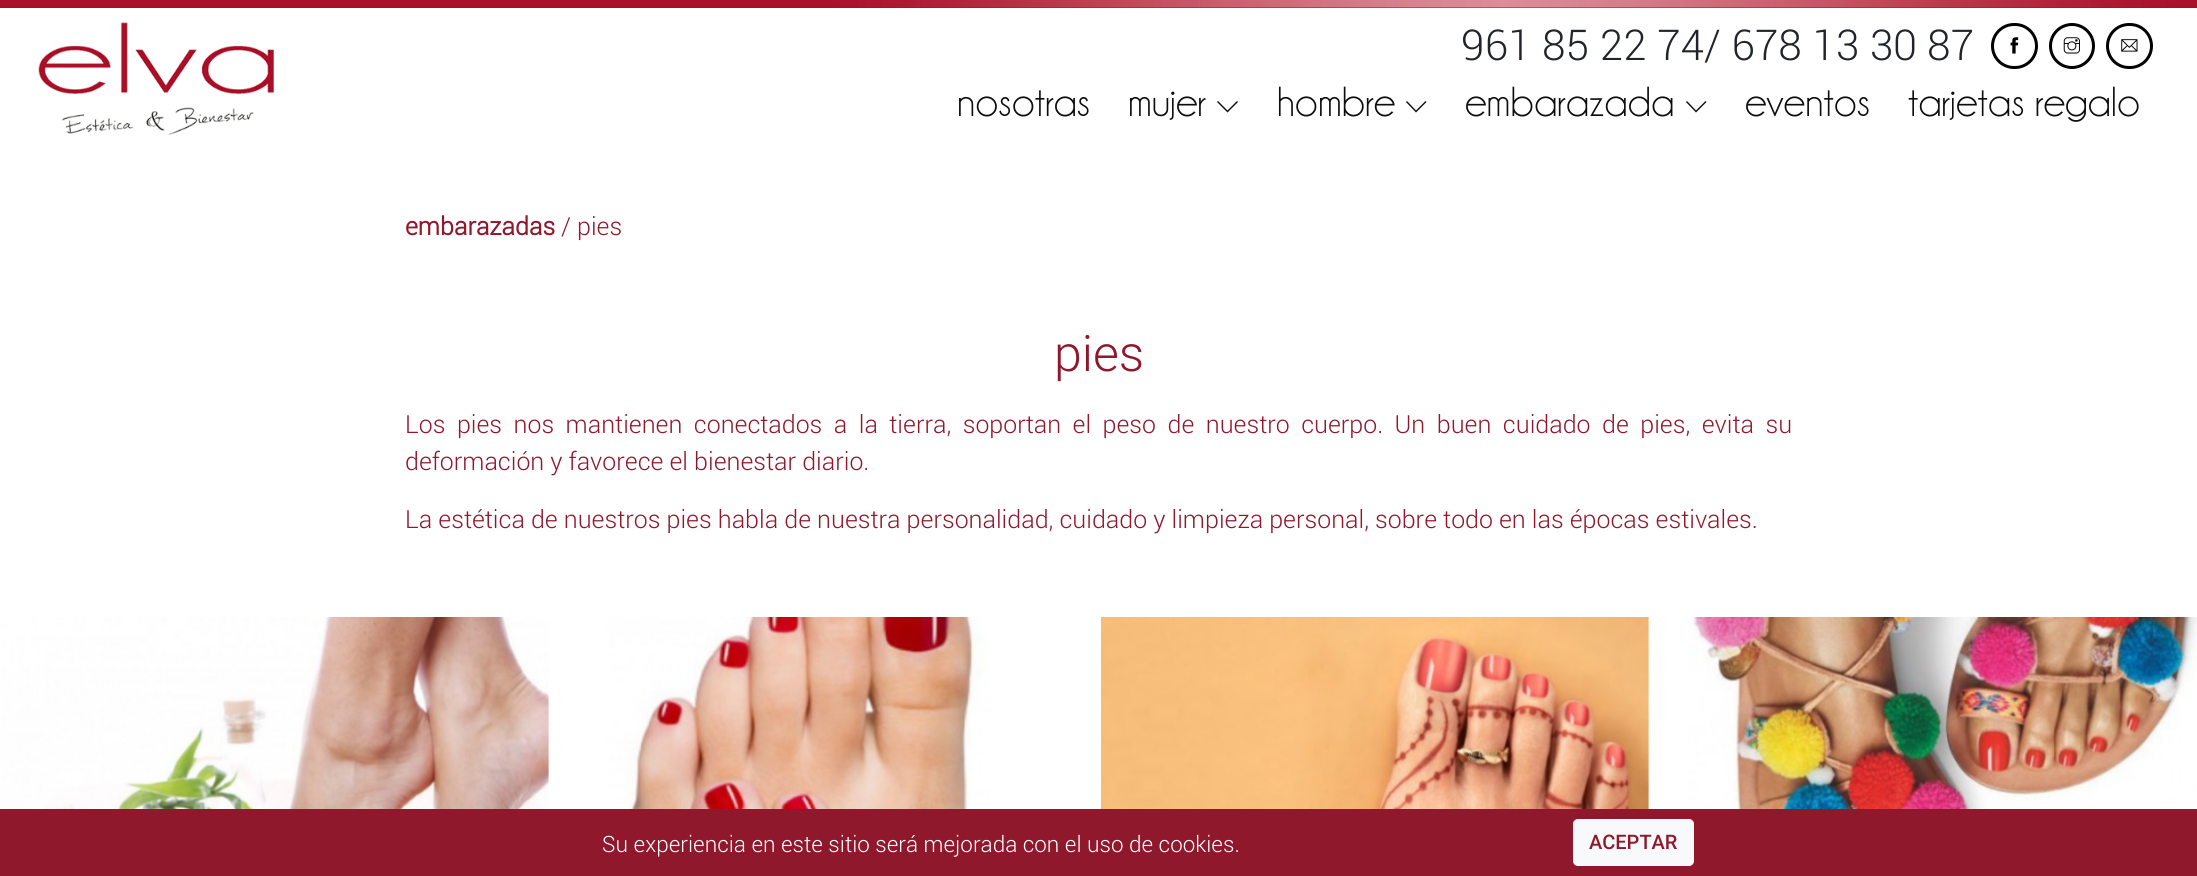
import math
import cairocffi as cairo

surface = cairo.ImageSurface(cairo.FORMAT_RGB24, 2197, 876)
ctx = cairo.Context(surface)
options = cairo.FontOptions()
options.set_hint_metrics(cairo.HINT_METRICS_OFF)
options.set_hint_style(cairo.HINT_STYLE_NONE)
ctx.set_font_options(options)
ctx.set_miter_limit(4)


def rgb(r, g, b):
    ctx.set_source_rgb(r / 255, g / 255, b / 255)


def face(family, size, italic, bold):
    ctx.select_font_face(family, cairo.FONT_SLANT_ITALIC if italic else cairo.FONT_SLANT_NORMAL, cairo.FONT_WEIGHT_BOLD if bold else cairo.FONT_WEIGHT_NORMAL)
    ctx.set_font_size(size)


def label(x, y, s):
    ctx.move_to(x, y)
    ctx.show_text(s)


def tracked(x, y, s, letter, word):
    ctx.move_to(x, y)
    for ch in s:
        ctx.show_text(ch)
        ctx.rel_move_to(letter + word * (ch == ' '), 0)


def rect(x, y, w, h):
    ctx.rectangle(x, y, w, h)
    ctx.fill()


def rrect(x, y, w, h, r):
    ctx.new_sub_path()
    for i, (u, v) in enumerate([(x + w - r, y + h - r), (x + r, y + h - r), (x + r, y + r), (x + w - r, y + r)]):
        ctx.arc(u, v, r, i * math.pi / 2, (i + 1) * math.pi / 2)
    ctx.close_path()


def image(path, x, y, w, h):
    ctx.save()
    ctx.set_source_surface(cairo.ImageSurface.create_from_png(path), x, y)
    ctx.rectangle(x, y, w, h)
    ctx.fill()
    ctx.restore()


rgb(255, 255, 255)
ctx.paint()
rgb(144, 24, 44)
rect(0, 7, 2197, 1)
image('image0.png', 0, 0, 2197, 8)
image('image1.png', 38, 22, 236, 113)
face('Roboto Light', 42.5, 0, 0)
rgb(33, 37, 41)
label(1461, 60, '961 85 22 74/ 678 13 30 87')
rrect(1992.5, 24.5, 44, 43, 21.5)
rgb(0, 0, 0)
ctx.set_line_width(3)
ctx.stroke()
image('image2.png', 2010, 37, 9, 17)
ctx.arc(2072, 46, 21.5, 0, 2 * math.pi)
ctx.stroke()
image('image3.png', 2063, 37, 17, 17)
rrect(2107.5, 24.5, 44, 43, 21.5)
ctx.stroke()
image('image4.png', 2121, 39, 17, 13)
face('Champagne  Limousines', 42.5, 0, 0)
rgb(13, 13, 13)
label(957, 116, 'nosotras')
label(1128, 116, 'mujer')
ctx.new_path()
ctx.move_to(1238, 102)
ctx.line_to(1227.5, 112.5)
ctx.line_to(1217, 102)
ctx.line_to(1218, 101)
ctx.line_to(1227.5, 110.5)
ctx.line_to(1237, 101)
ctx.close_path()
ctx.fill()
label(1277, 116, 'hombre')
ctx.new_path()
ctx.move_to(1426.5, 102)
ctx.line_to(1416, 112.5)
ctx.line_to(1406, 102)
ctx.line_to(1407, 101)
ctx.line_to(1416, 110.5)
ctx.line_to(1425.5, 101)
ctx.close_path()
ctx.fill()
label(1465, 116, 'embarazada')
ctx.new_path()
ctx.move_to(1706.5, 102)
ctx.line_to(1696, 112.5)
ctx.line_to(1686, 102)
ctx.line_to(1687, 101)
ctx.line_to(1696, 110.5)
ctx.line_to(1705.5, 101)
ctx.close_path()
ctx.fill()
label(1745, 116, 'eventos')
label(1908, 116, 'tarjetas regalo')
face('Roboto', 25, 0, 1)
rgb(144, 24, 44)
label(405, 235, 'embarazadas')
face('Roboto Light', 25, 0, 0)
label(561, 235, '/ pies')
face('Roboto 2 Light', 50, 0, 0)
label(1054, 371, 'pies')
face('Roboto Light', 25, 0, 0)
tracked(405, 433, 'Los pies nos mantienen conectados a la tierra, soportan el peso de nuestro cuerpo. Un buen cuidado de pies, evita su', 0, 5.4)
label(405, 470, 'deformación y favorece el bienestar diario.')
label(405, 528, 'La estética de nuestros pies habla de nuestra personalidad, cuidado y limpieza personal, sobre todo en las épocas estivales.')
image('image5.png', 1, 617, 548, 192)
image('image6.png', 606, 617, 384, 192)
image('image7.png', 1101, 617, 548, 192)
image('image8.png', 1688, 617, 509, 192)
rect(0, 809, 2197, 67)
face('Roboto Light', 22.5, 0, 0)
rgb(255, 255, 255)
label(602, 852, 'Su experiencia en este sitio será mejorada con el uso de cookies.')
rgb(248, 249, 250)
rrect(1573.5, 819.5, 120, 46, 4.5)
ctx.fill_preserve()
ctx.set_line_width(1)
ctx.stroke()
face('Roboto Medium', 20, 0, 0)
rgb(144, 24, 44)
label(1589, 849, 'ACEPTAR')
surface.write_to_png('render.png')
